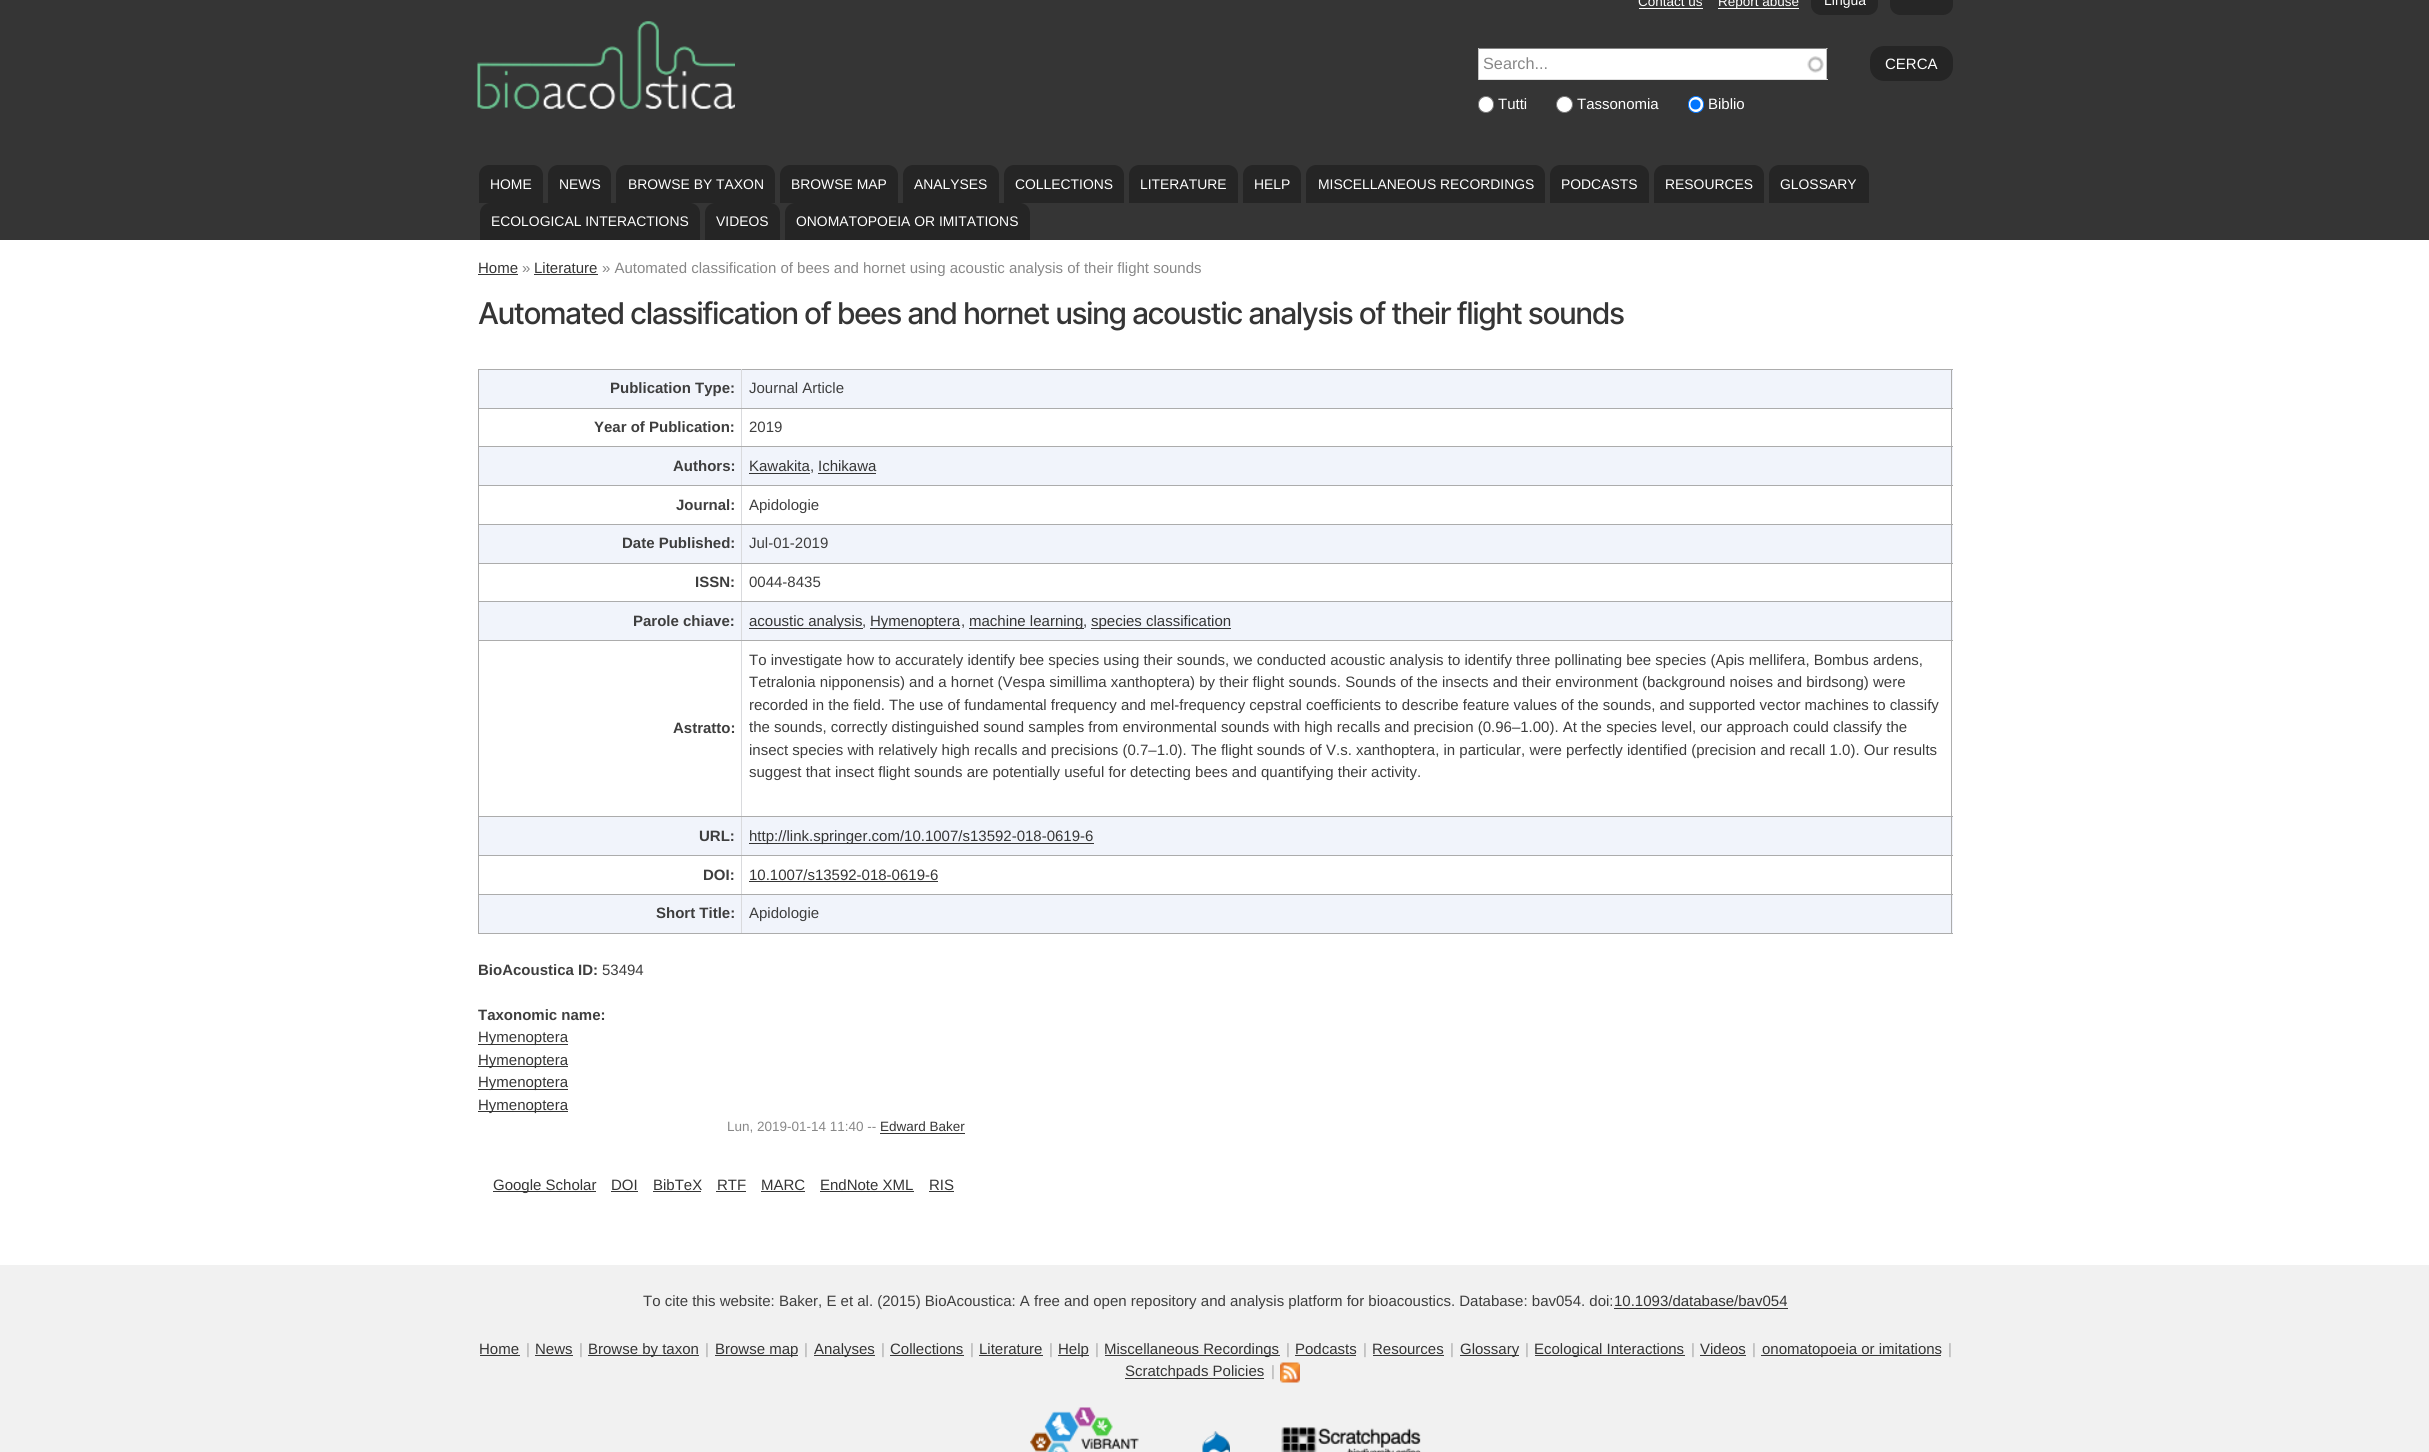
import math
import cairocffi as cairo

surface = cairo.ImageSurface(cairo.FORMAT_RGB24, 2429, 1452)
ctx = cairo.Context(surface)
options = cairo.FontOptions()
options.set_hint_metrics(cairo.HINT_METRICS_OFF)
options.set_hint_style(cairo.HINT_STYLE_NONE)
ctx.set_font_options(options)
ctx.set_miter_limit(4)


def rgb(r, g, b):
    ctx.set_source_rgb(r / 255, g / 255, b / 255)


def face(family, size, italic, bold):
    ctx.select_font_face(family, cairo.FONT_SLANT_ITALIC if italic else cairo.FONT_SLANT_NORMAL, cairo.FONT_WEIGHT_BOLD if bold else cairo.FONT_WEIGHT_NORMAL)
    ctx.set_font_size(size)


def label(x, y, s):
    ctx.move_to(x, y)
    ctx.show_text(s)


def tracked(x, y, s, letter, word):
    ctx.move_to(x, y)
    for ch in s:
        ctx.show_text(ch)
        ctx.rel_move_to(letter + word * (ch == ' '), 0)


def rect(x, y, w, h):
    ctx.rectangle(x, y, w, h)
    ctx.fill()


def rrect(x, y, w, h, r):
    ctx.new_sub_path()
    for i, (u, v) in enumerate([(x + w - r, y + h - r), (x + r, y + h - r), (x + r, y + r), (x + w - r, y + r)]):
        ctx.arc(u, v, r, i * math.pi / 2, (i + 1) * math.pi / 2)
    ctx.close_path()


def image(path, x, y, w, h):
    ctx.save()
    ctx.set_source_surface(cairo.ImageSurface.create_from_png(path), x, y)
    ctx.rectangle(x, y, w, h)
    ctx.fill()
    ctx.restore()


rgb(255, 255, 255)
ctx.paint()
rgb(53, 53, 53)
rect(0, 0, 2429, 240)
face('Liberation Sans', 13.5, 0, 0)
rgb(255, 255, 255)
label(1638, 6, 'Contact us')
rect(1639, 8, 64, 1)
rect(1718, 8, 81, 1)
label(1718, 6, 'Report abuse')
image('image0.png', 477, 21, 258, 88)
rect(1479, 49, 347, 30)
image('image1.png', 1807, 56, 17, 17)
rgb(132, 132, 132)
rect(1478, 48, 350, 1)
rgb(193, 193, 193)
rect(1826, 48, 1, 32)
rgb(225, 225, 225)
rect(1478, 79, 350, 1)
rgb(193, 193, 193)
rect(1478, 48, 1, 32)
face('Liberation Sans', 16.25, 0, 0)
rgb(136, 136, 136)
label(1483, 69, 'Search...')
rgb(37, 37, 37)
rrect(1870, 46, 83, 35, 14)
ctx.fill()
face('Liberation Sans', 15, 0, 0)
rgb(255, 255, 255)
label(1885, 69, 'CERCA')
rrect(1478.5, 96.5, 15, 16, 7.5)
ctx.fill_preserve()
rgb(118, 118, 118)
ctx.set_line_width(1)
ctx.stroke()
rgb(255, 255, 255)
label(1498, 109, 'Tutti')
ctx.new_path()
ctx.arc(1564.5, 104.5, 8, 0, 2 * math.pi)
ctx.fill_preserve()
rgb(118, 118, 118)
ctx.stroke()
rgb(255, 255, 255)
label(1577, 109, 'Tassonomia')
rrect(1688.5, 96.5, 15, 16, 7.5)
ctx.fill_preserve()
rgb(0, 117, 255)
ctx.stroke()
ctx.arc(1695.5, 104.5, 5, 0, 2 * math.pi)
ctx.fill()
rgb(255, 255, 255)
label(1708, 109, 'Biblio')
rgb(37, 37, 37)
ctx.new_path()
ctx.move_to(489, 165)
ctx.line_to(533, 165)
ctx.curve_to(538.5, 165, 543, 169.5, 543, 175)
ctx.line_to(543, 203)
ctx.line_to(479, 203)
ctx.line_to(479, 175)
ctx.curve_to(479, 169.5, 483.5, 165, 489, 165)
ctx.close_path()
ctx.fill()
face('Liberation Sans', 13.9, 0, 0)
rgb(255, 255, 255)
label(490, 189, 'HOME')
rgb(37, 37, 37)
ctx.new_path()
ctx.move_to(558, 165)
ctx.line_to(601, 165)
ctx.curve_to(606.5, 165, 611, 169.5, 611, 175)
ctx.line_to(611, 203)
ctx.line_to(548, 203)
ctx.line_to(548, 175)
ctx.curve_to(548, 169.5, 552.5, 165, 558, 165)
ctx.close_path()
ctx.fill()
rgb(255, 255, 255)
label(559, 189, 'NEWS')
rgb(37, 37, 37)
ctx.new_path()
ctx.move_to(626, 165)
ctx.line_to(765, 165)
ctx.curve_to(770.5, 165, 775, 169.5, 775, 175)
ctx.line_to(775, 203)
ctx.line_to(616, 203)
ctx.line_to(616, 175)
ctx.curve_to(616, 169.5, 620.5, 165, 626, 165)
ctx.close_path()
ctx.fill()
rgb(255, 255, 255)
label(628, 189, 'BROWSE BY TAXON')
rgb(37, 37, 37)
ctx.new_path()
ctx.move_to(790, 165)
ctx.line_to(888, 165)
ctx.curve_to(893.5, 165, 898, 169.5, 898, 175)
ctx.line_to(898, 203)
ctx.line_to(780, 203)
ctx.line_to(780, 175)
ctx.curve_to(780, 169.5, 784.5, 165, 790, 165)
ctx.close_path()
ctx.fill()
rgb(255, 255, 255)
label(791, 189, 'BROWSE MAP')
rgb(37, 37, 37)
ctx.new_path()
ctx.move_to(913, 165)
ctx.line_to(989, 165)
ctx.curve_to(994.5, 165, 999, 169.5, 999, 175)
ctx.line_to(999, 203)
ctx.line_to(903, 203)
ctx.line_to(903, 175)
ctx.curve_to(903, 169.5, 907.5, 165, 913, 165)
ctx.close_path()
ctx.fill()
rgb(255, 255, 255)
label(914, 189, 'ANALYSES')
rgb(37, 37, 37)
ctx.new_path()
ctx.move_to(1014, 165)
ctx.line_to(1114, 165)
ctx.curve_to(1119.5, 165, 1124, 169.5, 1124, 175)
ctx.line_to(1124, 203)
ctx.line_to(1004, 203)
ctx.line_to(1004, 175)
ctx.curve_to(1004, 169.5, 1008.5, 165, 1014, 165)
ctx.close_path()
ctx.fill()
rgb(255, 255, 255)
label(1015, 189, 'COLLECTIONS')
rgb(37, 37, 37)
ctx.new_path()
ctx.move_to(1139, 165)
ctx.line_to(1228, 165)
ctx.curve_to(1233.5, 165, 1238, 169.5, 1238, 175)
ctx.line_to(1238, 203)
ctx.line_to(1129, 203)
ctx.line_to(1129, 175)
ctx.curve_to(1129, 169.5, 1133.5, 165, 1139, 165)
ctx.close_path()
ctx.fill()
rgb(255, 255, 255)
label(1140, 189, 'LITERATURE')
rgb(37, 37, 37)
ctx.new_path()
ctx.move_to(1253, 165)
ctx.line_to(1291, 165)
ctx.curve_to(1296.5, 165, 1301, 169.5, 1301, 175)
ctx.line_to(1301, 203)
ctx.line_to(1243, 203)
ctx.line_to(1243, 175)
ctx.curve_to(1243, 169.5, 1247.5, 165, 1253, 165)
ctx.close_path()
ctx.fill()
rgb(255, 255, 255)
label(1254, 189, 'HELP')
rgb(37, 37, 37)
ctx.new_path()
ctx.move_to(1316, 165)
ctx.line_to(1535, 165)
ctx.curve_to(1540.5, 165, 1545, 169.5, 1545, 175)
ctx.line_to(1545, 203)
ctx.line_to(1306, 203)
ctx.line_to(1306, 175)
ctx.curve_to(1306, 169.5, 1310.5, 165, 1316, 165)
ctx.close_path()
ctx.fill()
rgb(255, 255, 255)
label(1318, 189, 'MISCELLANEOUS RECORDINGS')
rgb(37, 37, 37)
ctx.new_path()
ctx.move_to(1560, 165)
ctx.line_to(1639, 165)
ctx.curve_to(1644.5, 165, 1649, 169.5, 1649, 175)
ctx.line_to(1649, 203)
ctx.line_to(1550, 203)
ctx.line_to(1550, 175)
ctx.curve_to(1550, 169.5, 1554.5, 165, 1560, 165)
ctx.close_path()
ctx.fill()
rgb(255, 255, 255)
label(1561, 189, 'PODCASTS')
rgb(37, 37, 37)
ctx.new_path()
ctx.move_to(1664, 165)
ctx.line_to(1754, 165)
ctx.curve_to(1759.5, 165, 1764, 169.5, 1764, 175)
ctx.line_to(1764, 203)
ctx.line_to(1654, 203)
ctx.line_to(1654, 175)
ctx.curve_to(1654, 169.5, 1658.5, 165, 1664, 165)
ctx.close_path()
ctx.fill()
rgb(255, 255, 255)
label(1665, 189, 'RESOURCES')
rgb(37, 37, 37)
ctx.new_path()
ctx.move_to(1779, 165)
ctx.line_to(1859, 165)
ctx.curve_to(1864.5, 165, 1869, 169.5, 1869, 175)
ctx.line_to(1869, 203)
ctx.line_to(1769, 203)
ctx.line_to(1769, 175)
ctx.curve_to(1769, 169.5, 1773.5, 165, 1779, 165)
ctx.close_path()
ctx.fill()
rgb(255, 255, 255)
label(1780, 189, 'GLOSSARY')
rgb(37, 37, 37)
ctx.new_path()
ctx.move_to(490, 203)
ctx.line_to(690, 203)
ctx.curve_to(695.5, 203, 700, 207.5, 700, 213)
ctx.line_to(700, 240)
ctx.line_to(480, 240)
ctx.line_to(480, 213)
ctx.curve_to(480, 207.5, 484.5, 203, 490, 203)
ctx.close_path()
ctx.fill()
rgb(255, 255, 255)
label(491, 226, 'ECOLOGICAL INTERACTIONS')
rgb(37, 37, 37)
ctx.new_path()
ctx.move_to(715, 203)
ctx.line_to(770, 203)
ctx.curve_to(775.5, 203, 780, 207.5, 780, 213)
ctx.line_to(780, 240)
ctx.line_to(705, 240)
ctx.line_to(705, 213)
ctx.curve_to(705, 207.5, 709.5, 203, 715, 203)
ctx.close_path()
ctx.fill()
rgb(255, 255, 255)
label(716, 226, 'VIDEOS')
rgb(37, 37, 37)
ctx.new_path()
ctx.move_to(795, 203)
ctx.line_to(1020, 203)
ctx.curve_to(1025.5, 203, 1030, 207.5, 1030, 213)
ctx.line_to(1030, 240)
ctx.line_to(785, 240)
ctx.line_to(785, 213)
ctx.curve_to(785, 207.5, 789.5, 203, 795, 203)
ctx.close_path()
ctx.fill()
rgb(255, 255, 255)
label(796, 226, 'ONOMATOPOEIA OR IMITATIONS')
rgb(38, 38, 38)
ctx.new_path()
ctx.move_to(1811, -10)
ctx.line_to(1878, -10)
ctx.line_to(1878, 5)
ctx.curve_to(1878, 10.5, 1873.5, 15, 1868, 15)
ctx.line_to(1821, 15)
ctx.curve_to(1815.5, 15, 1811, 10.5, 1811, 5)
ctx.close_path()
ctx.fill()
face('Liberation Sans', 14, 0, 0)
rgb(255, 255, 255)
label(1824, 5, 'Lingua')
rgb(38, 38, 38)
ctx.new_path()
ctx.move_to(1890, -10)
ctx.line_to(1953, -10)
ctx.line_to(1953, 5)
ctx.curve_to(1953, 10.5, 1948.5, 15, 1943, 15)
ctx.line_to(1900, 15)
ctx.curve_to(1894.5, 15, 1890, 10.5, 1890, 5)
ctx.close_path()
ctx.fill()
face('Liberation Sans', 15, 0, 0)
rgb(53, 53, 53)
label(478, 273, 'Home')
rect(478, 274, 40, 1)
rgb(136, 136, 136)
label(522, 273, '»')
rgb(53, 53, 53)
label(534, 273, 'Literature')
rect(534, 274, 64, 1)
rgb(136, 136, 136)
label(602, 273, '» Automated classification of bees and hornet using acoustic analysis of their flight sounds')
face('Inter Medium', 30, 0, 0)
rgb(53, 53, 53)
tracked(478, 324, 'Automated classification of bees and hornet using acoustic analysis of their flight sounds', -1.5, 0)
rgb(241, 244, 251)
rect(479, 370, 1474, 38)
rgb(172, 172, 172)
rect(478, 369, 1475, 1)
rgb(241, 244, 251)
rect(479, 447, 1474, 38)
rect(479, 525, 1474, 38)
rect(479, 602, 1474, 38)
rect(479, 817, 1474, 38)
rect(479, 895, 1474, 38)
rgb(172, 172, 172)
rect(1951, 408, 1, 526)
rect(1951, 369, 1, 40)
rect(741, 933, 1212, 1)
rgb(217, 218, 221)
rect(741, 894, 1, 40)
rgb(172, 172, 172)
rect(741, 894, 1212, 1)
rgb(217, 218, 221)
rect(741, 855, 1, 40)
rgb(172, 172, 172)
rect(741, 855, 1212, 1)
rgb(217, 218, 221)
rect(741, 816, 1, 40)
rgb(172, 172, 172)
rect(741, 816, 1212, 1)
rgb(217, 218, 221)
rect(741, 640, 1, 178)
rgb(172, 172, 172)
rect(741, 640, 1212, 1)
rgb(217, 218, 221)
rect(741, 601, 1, 40)
rgb(172, 172, 172)
rect(741, 601, 1212, 1)
rgb(217, 218, 221)
rect(741, 563, 1, 40)
rgb(172, 172, 172)
rect(741, 563, 1212, 1)
rgb(217, 218, 221)
rect(741, 524, 1, 40)
rgb(172, 172, 172)
rect(741, 524, 1212, 1)
rgb(217, 218, 221)
rect(741, 485, 1, 40)
rgb(172, 172, 172)
rect(741, 485, 1212, 1)
rgb(217, 218, 221)
rect(741, 446, 1, 40)
rgb(172, 172, 172)
rect(741, 446, 1212, 1)
rgb(217, 218, 221)
rect(741, 408, 1, 40)
rgb(172, 172, 172)
rect(741, 408, 1212, 1)
rgb(217, 218, 221)
rect(741, 369, 1, 40)
rgb(172, 172, 172)
rect(478, 933, 265, 1)
rect(478, 894, 1, 40)
rect(478, 894, 265, 1)
rect(478, 855, 1, 40)
rect(478, 855, 265, 1)
rect(478, 816, 1, 40)
rect(478, 816, 265, 1)
rect(478, 640, 1, 178)
rect(478, 640, 265, 1)
rect(478, 601, 1, 40)
rect(478, 601, 265, 1)
rect(478, 563, 1, 40)
rect(478, 563, 265, 1)
rect(478, 524, 1, 40)
rect(478, 524, 265, 1)
rect(478, 485, 1, 40)
rect(478, 485, 265, 1)
rect(478, 446, 1, 40)
rect(478, 446, 265, 1)
rect(478, 408, 1, 40)
rect(478, 408, 265, 1)
rect(478, 369, 1, 40)
face('Liberation Sans', 15, 0, 1)
rgb(62, 62, 62)
label(610, 393, 'Publication Type:')
face('Liberation Sans', 15, 0, 0)
label(749, 393, 'Journal Article')
face('Liberation Sans', 15, 0, 1)
label(594, 432, 'Year of Publication:')
face('Liberation Sans', 15, 0, 0)
label(749, 432, '2019')
face('Liberation Sans', 15, 0, 1)
label(673, 471, 'Authors:')
face('Liberation Sans', 15, 0, 0)
rgb(53, 53, 53)
label(749, 471, 'Kawakita')
rect(749, 473, 61, 1)
rgb(62, 62, 62)
label(810, 471, ',')
rgb(53, 53, 53)
label(818, 471, 'Ichikawa')
rect(818, 473, 58, 1)
face('Liberation Sans', 15, 0, 1)
rgb(62, 62, 62)
label(676, 510, 'Journal:')
face('Liberation Sans', 15, 0, 0)
label(749, 510, 'Apidologie')
face('Liberation Sans', 15, 0, 1)
label(622, 548, 'Date Published:')
face('Liberation Sans', 15, 0, 0)
label(749, 548, 'Jul-01-2019')
face('Liberation Sans', 15, 0, 1)
label(695, 587, 'ISSN:')
face('Liberation Sans', 15, 0, 0)
label(749, 587, '0044-8435')
face('Liberation Sans', 15, 0, 1)
label(633, 626, 'Parole chiave:')
rgb(53, 53, 53)
rect(749, 628, 114, 1)
face('Liberation Sans', 15, 0, 0)
label(749, 626, 'acoustic analysis')
rgb(62, 62, 62)
label(862, 626, ',')
rgb(53, 53, 53)
rect(870, 628, 90, 1)
label(870, 626, 'Hymenoptera')
rgb(62, 62, 62)
label(961, 626, ',')
rgb(53, 53, 53)
rect(969, 628, 115, 1)
label(969, 626, 'machine learning')
rgb(62, 62, 62)
label(1083, 626, ',')
rgb(53, 53, 53)
rect(1091, 628, 140, 1)
label(1091, 626, 'species classification')
face('Liberation Sans', 15, 0, 1)
rgb(62, 62, 62)
label(673, 733, 'Astratto:')
face('Liberation Sans', 15, 0, 0)
label(749, 665, 'To investigate how to accurately identify bee species using their sounds, we conducted acoustic analysis to identify three pollinating bee species (Apis mellifera, Bombus ardens,')
label(749, 687, 'Tetralonia nipponensis) and a hornet (Vespa simillima xanthoptera) by their flight sounds. Sounds of the insects and their environment (background noises and birdsong) were')
label(749, 710, 'recorded in the field. The use of fundamental frequency and mel-frequency cepstral coefficients to describe feature values of the sounds, and supported vector machines to classify')
label(749, 732, 'the sounds, correctly distinguished sound samples from environmental sounds with high recalls and precision (0.96–1.00). At the species level, our approach could classify the')
label(749, 755, 'insect species with relatively high recalls and precisions (0.7–1.0). The flight sounds of V.s. xanthoptera, in particular, were perfectly identified (precision and recall 1.0). Our results')
label(749, 777, 'suggest that insect flight sounds are potentially useful for detecting bees and quantifying their activity.')
face('Liberation Sans', 15, 0, 1)
label(699, 841, 'URL:')
rgb(53, 53, 53)
rect(749, 843, 345, 1)
face('Liberation Sans', 15, 0, 0)
label(749, 841, 'http://link.springer.com/10.1007/s13592-018-0619-6')
face('Liberation Sans', 15, 0, 1)
rgb(62, 62, 62)
label(703, 880, 'DOI:')
face('Liberation Sans', 15, 0, 0)
rgb(53, 53, 53)
label(749, 880, '10.1007/s13592-018-0619-6')
rect(749, 881, 189, 1)
face('Liberation Sans', 15, 0, 1)
rgb(62, 62, 62)
label(656, 918, 'Short Title:')
face('Liberation Sans', 15, 0, 0)
label(749, 918, 'Apidologie')
face('Liberation Sans', 15, 0, 1)
label(478, 975, 'BioAcoustica ID:')
face('Liberation Sans', 15, 0, 0)
label(602, 975, '53494')
face('Liberation Sans', 15, 0, 1)
label(478, 1020, 'Taxonomic name:')
rgb(53, 53, 53)
rect(478, 1044, 90, 1)
face('Liberation Sans', 15, 0, 0)
label(478, 1042, 'Hymenoptera')
rect(478, 1066, 90, 1)
label(478, 1065, 'Hymenoptera')
rect(478, 1089, 90, 1)
label(478, 1087, 'Hymenoptera')
rect(478, 1111, 90, 1)
label(478, 1110, 'Hymenoptera')
face('Liberation Sans', 13.5, 0, 0)
rgb(136, 136, 136)
label(727, 1131, 'Lun, 2019-01-14 11:40 --')
rgb(53, 53, 53)
label(880, 1131, 'Edward Baker')
rect(880, 1133, 85, 1)
rect(493, 1191, 103, 1)
face('Liberation Sans', 15, 0, 0)
label(493, 1190, 'Google Scholar')
label(611, 1190, 'DOI')
rect(611, 1191, 27, 1)
label(653, 1190, 'BibTeX')
rect(653, 1191, 48, 1)
label(717, 1190, 'RTF')
rect(716, 1191, 30, 1)
label(761, 1190, 'MARC')
rect(761, 1191, 44, 1)
label(820, 1190, 'EndNote XML')
rect(820, 1191, 94, 1)
label(929, 1190, 'RIS')
rect(929, 1191, 25, 1)
rgb(241, 241, 241)
rect(0, 1265, 2429, 187)
rgb(62, 62, 62)
label(643, 1306, 'To cite this website: Baker, E et al. (2015) BioAcoustica: A free and open repository and analysis platform for bioacoustics. Database: bav054. doi:')
rgb(53, 53, 53)
label(1614, 1306, '10.1093/database/bav054')
rect(1614, 1308, 174, 1)
label(479, 1354, 'Home')
rect(480, 1355, 40, 1)
rgb(172, 172, 172)
label(526, 1354, '|')
rgb(53, 53, 53)
label(535, 1354, 'News')
rect(535, 1355, 38, 1)
rgb(172, 172, 172)
label(579, 1354, '|')
rgb(53, 53, 53)
rect(588, 1355, 111, 1)
label(588, 1354, 'Browse by taxon')
rgb(172, 172, 172)
label(705, 1354, '|')
rgb(53, 53, 53)
rect(715, 1355, 83, 1)
label(715, 1354, 'Browse map')
rgb(172, 172, 172)
label(804, 1354, '|')
rgb(53, 53, 53)
rect(814, 1355, 61, 1)
label(814, 1354, 'Analyses')
rgb(172, 172, 172)
label(881, 1354, '|')
rgb(53, 53, 53)
label(890, 1354, 'Collections')
rect(890, 1355, 74, 1)
rgb(172, 172, 172)
label(970, 1354, '|')
rgb(53, 53, 53)
label(979, 1354, 'Literature')
rect(979, 1355, 64, 1)
rgb(172, 172, 172)
label(1049, 1354, '|')
rgb(53, 53, 53)
rect(1058, 1355, 31, 1)
label(1058, 1354, 'Help')
rgb(172, 172, 172)
label(1095, 1354, '|')
rgb(53, 53, 53)
rect(1105, 1355, 175, 1)
label(1104, 1354, 'Miscellaneous Recordings')
rgb(172, 172, 172)
label(1286, 1354, '|')
rgb(53, 53, 53)
label(1295, 1354, 'Podcasts')
rect(1295, 1355, 61, 1)
rgb(172, 172, 172)
label(1363, 1354, '|')
rgb(53, 53, 53)
label(1372, 1354, 'Resources')
rect(1373, 1355, 71, 1)
rgb(172, 172, 172)
label(1450, 1354, '|')
rgb(53, 53, 53)
rect(1460, 1355, 59, 1)
label(1460, 1354, 'Glossary')
rgb(172, 172, 172)
label(1525, 1354, '|')
rgb(53, 53, 53)
rect(1535, 1355, 150, 1)
label(1534, 1354, 'Ecological Interactions')
rgb(172, 172, 172)
label(1691, 1354, '|')
rgb(53, 53, 53)
label(1700, 1354, 'Videos')
rect(1700, 1355, 46, 1)
rgb(172, 172, 172)
label(1752, 1354, '|')
rgb(53, 53, 53)
rect(1761, 1355, 180, 1)
label(1762, 1354, 'onomatopoeia or imitations')
rgb(172, 172, 172)
label(1948, 1354, '|')
rgb(53, 53, 53)
rect(1125, 1378, 139, 1)
label(1125, 1376, 'Scratchpads Policies')
rgb(172, 172, 172)
label(1271, 1376, '|')
image('image2.png', 1280, 1362, 20, 21)
image('image3.png', 1030, 1407, 109, 45)
image('image4.png', 1202, 1431, 28, 21)
image('image5.png', 1281, 1427, 140, 25)
surface.write_to_png('render.png')
